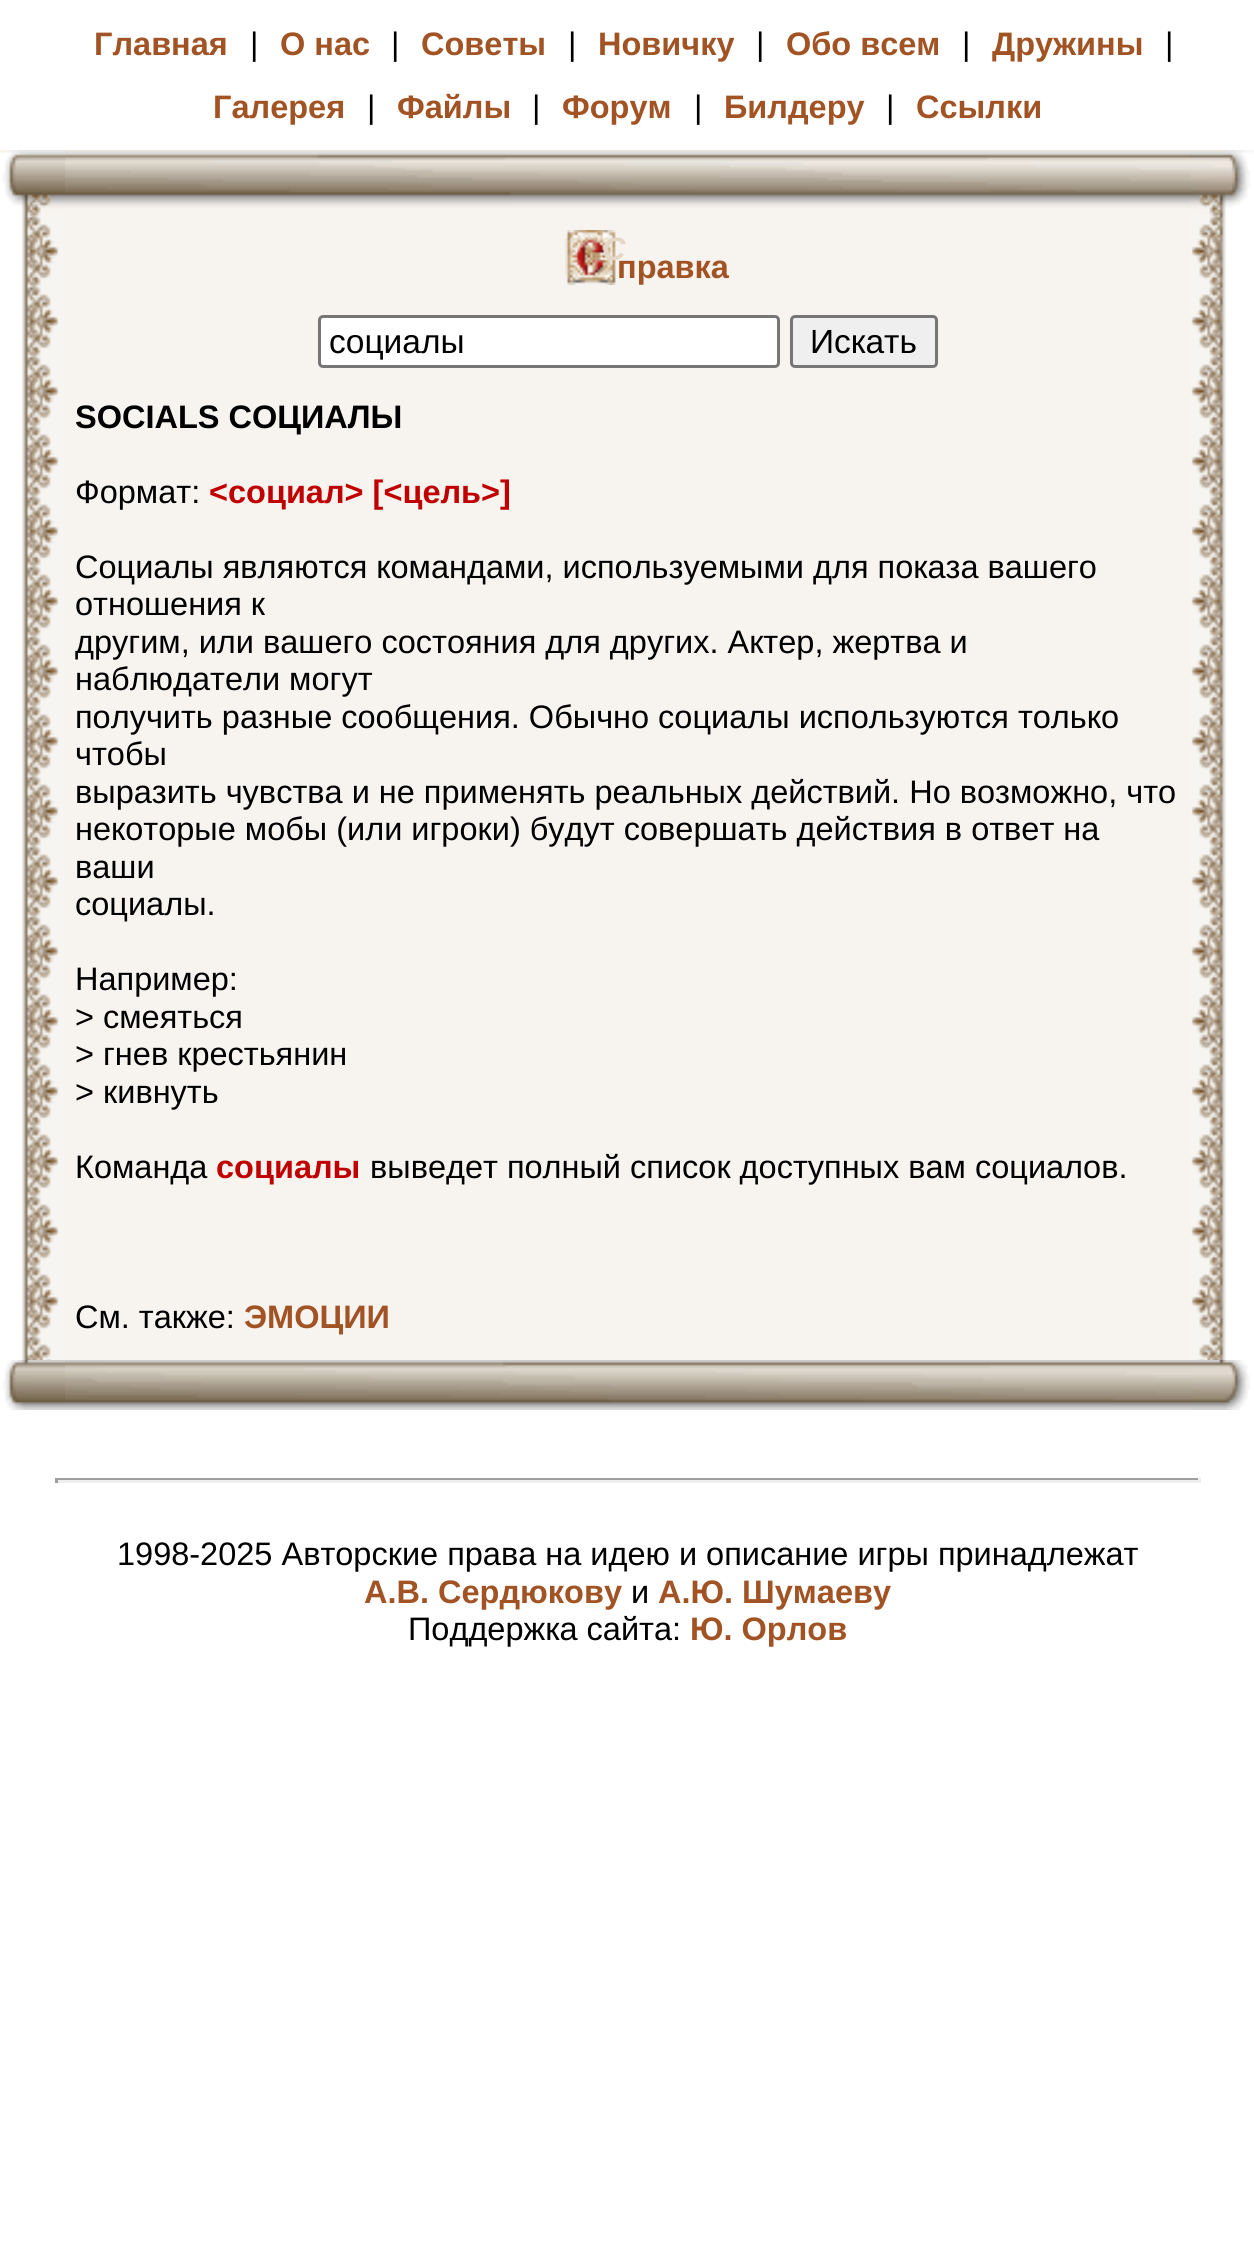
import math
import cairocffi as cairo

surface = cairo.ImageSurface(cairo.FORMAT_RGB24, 1254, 2265)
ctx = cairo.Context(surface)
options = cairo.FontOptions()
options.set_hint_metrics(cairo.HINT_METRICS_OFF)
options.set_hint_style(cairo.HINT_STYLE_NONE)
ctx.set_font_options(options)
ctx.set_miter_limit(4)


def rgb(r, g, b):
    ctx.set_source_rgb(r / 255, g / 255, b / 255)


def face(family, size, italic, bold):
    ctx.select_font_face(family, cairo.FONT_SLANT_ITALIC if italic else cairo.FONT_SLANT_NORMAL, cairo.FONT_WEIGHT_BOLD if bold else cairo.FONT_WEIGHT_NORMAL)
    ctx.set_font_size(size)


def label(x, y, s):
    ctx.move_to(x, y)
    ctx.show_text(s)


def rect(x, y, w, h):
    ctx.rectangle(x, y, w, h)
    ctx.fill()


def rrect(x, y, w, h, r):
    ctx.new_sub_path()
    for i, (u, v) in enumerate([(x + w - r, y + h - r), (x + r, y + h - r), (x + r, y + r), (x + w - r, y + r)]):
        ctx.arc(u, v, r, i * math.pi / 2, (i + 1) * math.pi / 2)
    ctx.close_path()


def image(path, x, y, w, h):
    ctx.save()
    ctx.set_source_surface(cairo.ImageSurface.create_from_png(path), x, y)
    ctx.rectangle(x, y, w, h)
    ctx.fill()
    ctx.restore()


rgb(255, 255, 255)
ctx.paint()
face('Liberation Sans', 32.5, 0, 1)
rgb(162, 83, 36)
label(94, 55, 'Главная')
face('Liberation Sans', 32.5, 0, 0)
rgb(0, 0, 0)
label(250, 55, '|')
face('Liberation Sans', 32.5, 0, 1)
rgb(162, 83, 36)
label(280, 55, 'О нас')
face('Liberation Sans', 32.5, 0, 0)
rgb(0, 0, 0)
label(391, 55, '|')
face('Liberation Sans', 32.5, 0, 1)
rgb(162, 83, 36)
label(421, 55, 'Советы')
face('Liberation Sans', 32.5, 0, 0)
rgb(0, 0, 0)
label(568, 55, '|')
face('Liberation Sans', 32.5, 0, 1)
rgb(162, 83, 36)
label(598, 55, 'Новичку')
face('Liberation Sans', 32.5, 0, 0)
rgb(0, 0, 0)
label(756, 55, '|')
face('Liberation Sans', 32.5, 0, 1)
rgb(162, 83, 36)
label(786, 55, 'Обо всем')
face('Liberation Sans', 32.5, 0, 0)
rgb(0, 0, 0)
label(962, 55, '|')
face('Liberation Sans', 32.5, 0, 1)
rgb(162, 83, 36)
label(992, 55, 'Дружины')
face('Liberation Sans', 32.5, 0, 0)
rgb(0, 0, 0)
label(1165, 55, '|')
face('Liberation Sans', 32.5, 0, 1)
rgb(162, 83, 36)
label(213, 118, 'Галерея')
face('Liberation Sans', 32.5, 0, 0)
rgb(0, 0, 0)
label(367, 118, '|')
face('Liberation Sans', 32.5, 0, 1)
rgb(162, 83, 36)
label(397, 118, 'Файлы')
face('Liberation Sans', 32.5, 0, 0)
rgb(0, 0, 0)
label(532, 118, '|')
face('Liberation Sans', 32.5, 0, 1)
rgb(162, 83, 36)
label(562, 118, 'Форум')
face('Liberation Sans', 32.5, 0, 0)
rgb(0, 0, 0)
label(694, 118, '|')
face('Liberation Sans', 32.5, 0, 1)
rgb(162, 83, 36)
label(724, 118, 'Билдеру')
face('Liberation Sans', 32.5, 0, 0)
rgb(0, 0, 0)
label(886, 118, '|')
face('Liberation Sans', 32.5, 0, 1)
rgb(162, 83, 36)
label(916, 118, 'Ссылки')
rgb(247, 244, 240)
rect(65, 215, 1125, 1145)
image('image0.png', 0, 150, 1254, 1260)
image('image1.png', 565, 230, 51, 55)
face('Liberation Sans', 32.5, 1, 1)
rgb(228, 215, 200)
label(602, 260, 'С')
face('Liberation Sans', 32.5, 0, 1)
rgb(162, 83, 36)
label(617, 278, 'правка')
rgb(255, 255, 255)
rrect(319.5, 316.5, 459, 50, 3.5)
ctx.fill_preserve()
rgb(118, 118, 118)
ctx.set_line_width(3)
ctx.stroke()
face('Liberation Sans', 33.5, 0, 0)
rgb(0, 0, 0)
label(329, 353, 'социалы')
rgb(239, 239, 239)
rrect(791.5, 316.5, 145, 50, 3.5)
ctx.fill_preserve()
rgb(118, 118, 118)
ctx.stroke()
rgb(0, 0, 0)
label(810, 353, 'Искать')
face('Liberation Sans', 32.5, 0, 1)
label(75, 428, 'SOCIALS СОЦИАЛЫ')
face('Liberation Sans', 32.5, 0, 0)
label(75, 503, 'Формат:')
face('Liberation Sans', 32.5, 0, 1)
rgb(192, 0, 0)
label(209, 503, '<социал> [<цель>]')
face('Liberation Sans', 32.5, 0, 0)
rgb(0, 0, 0)
label(75, 578, 'Социалы являются командами, используемыми для показа вашего')
label(75, 615, 'отношения к')
label(75, 653, 'другим, или вашего состояния для других. Актер, жертва и')
label(75, 690, 'наблюдатели могут')
label(75, 728, 'получить разные сообщения. Обычно социалы используются только')
label(75, 765, 'чтобы')
label(75, 803, 'выразить чувства и не применять реальных действий. Но возможно, что')
label(75, 840, 'некоторые мобы (или игроки) будут совершать действия в ответ на')
label(75, 878, 'ваши')
label(75, 915, 'социалы.')
label(75, 990, 'Например:')
label(75, 1028, '> смеяться')
label(75, 1065, '> гнев крестьянин')
label(75, 1103, '> кивнуть')
label(75, 1178, 'Команда')
face('Liberation Sans', 32.5, 0, 1)
rgb(192, 0, 0)
label(216, 1178, 'социалы')
face('Liberation Sans', 32.5, 0, 0)
rgb(0, 0, 0)
label(370, 1178, 'выведет полный список доступных вам социалов.')
label(75, 1328, 'См. также:')
face('Liberation Sans', 32.5, 0, 1)
rgb(162, 83, 36)
label(244, 1328, 'ЭМОЦИИ')
rgb(159, 159, 159)
rect(55, 1478, 1145, 2)
rgb(238, 238, 238)
rect(1198, 1478, 3, 5)
rect(55, 1480, 1145, 3)
rgb(159, 159, 159)
rect(55, 1478, 3, 5)
face('Liberation Sans', 32.5, 0, 0)
rgb(0, 0, 0)
label(117, 1565, '1998-2025 Авторские права на идею и описание игры принадлежат')
face('Liberation Sans', 32.5, 0, 1)
rgb(162, 83, 36)
label(364, 1603, 'А.В. Сердюкову')
face('Liberation Sans', 32.5, 0, 0)
rgb(0, 0, 0)
label(631, 1603, 'и')
face('Liberation Sans', 32.5, 0, 1)
rgb(162, 83, 36)
label(658, 1603, 'А.Ю. Шумаеву')
face('Liberation Sans', 32.5, 0, 0)
rgb(0, 0, 0)
label(408, 1640, 'Поддержка сайта:')
face('Liberation Sans', 32.5, 0, 1)
rgb(162, 83, 36)
label(690, 1640, 'Ю. Орлов')
surface.write_to_png('render.png')
